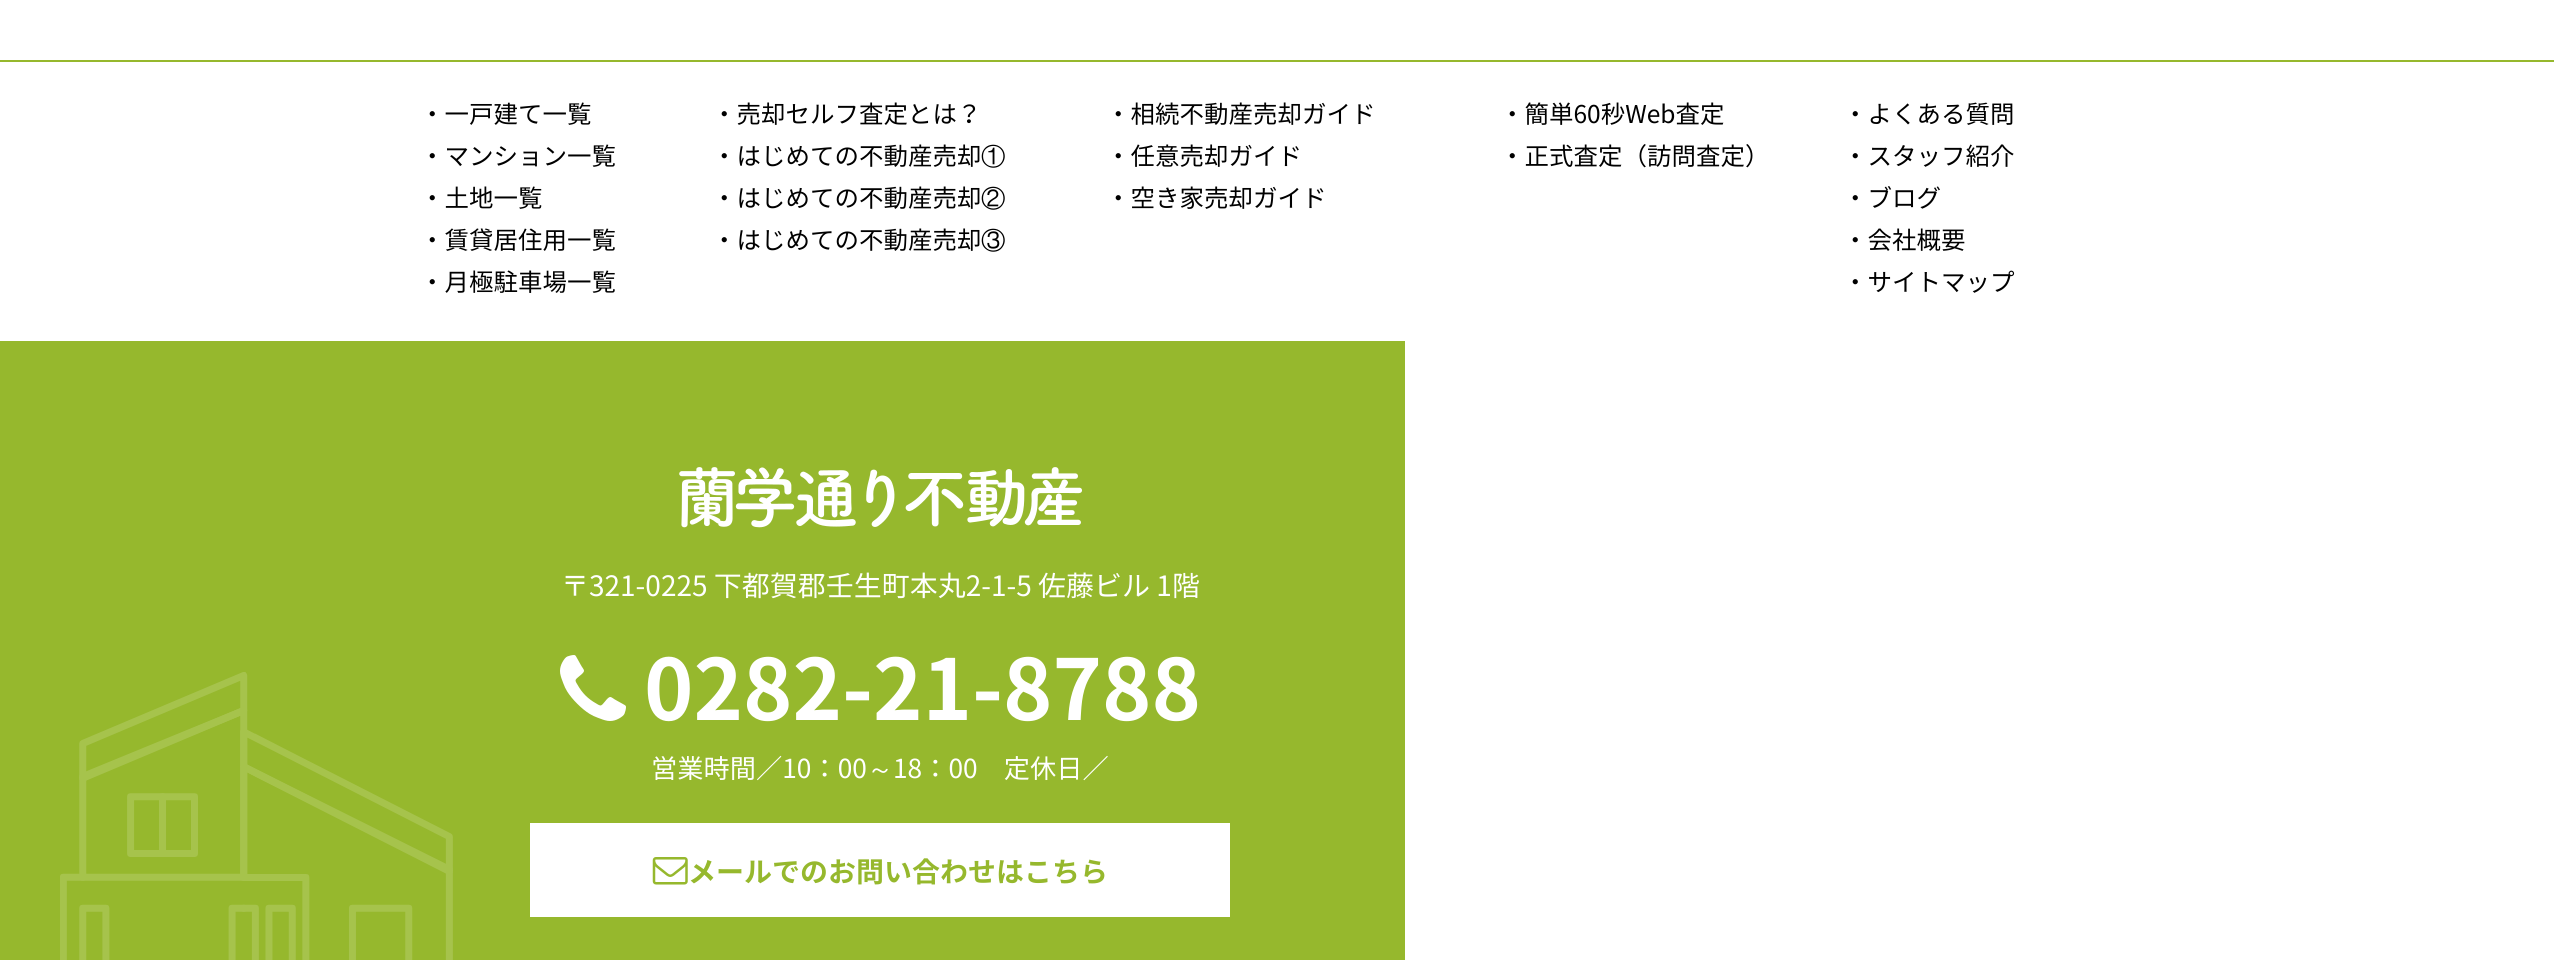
import math
import cairocffi as cairo

surface = cairo.ImageSurface(cairo.FORMAT_RGB24, 2554, 960)
ctx = cairo.Context(surface)
options = cairo.FontOptions()
options.set_hint_metrics(cairo.HINT_METRICS_OFF)
options.set_hint_style(cairo.HINT_STYLE_NONE)
ctx.set_font_options(options)
ctx.set_miter_limit(4)


def rgb(r, g, b):
    ctx.set_source_rgb(r / 255, g / 255, b / 255)


def face(family, size, italic, bold):
    ctx.select_font_face(family, cairo.FONT_SLANT_ITALIC if italic else cairo.FONT_SLANT_NORMAL, cairo.FONT_WEIGHT_BOLD if bold else cairo.FONT_WEIGHT_NORMAL)
    ctx.set_font_size(size)


def label(x, y, s):
    ctx.move_to(x, y)
    ctx.show_text(s)


def rect(x, y, w, h):
    ctx.rectangle(x, y, w, h)
    ctx.fill()


def image(path, x, y, w, h):
    ctx.save()
    ctx.set_source_surface(cairo.ImageSurface.create_from_png(path), x, y)
    ctx.rectangle(x, y, w, h)
    ctx.fill()
    ctx.restore()


rgb(255, 255, 255)
ctx.paint()
rgb(150, 184, 45)
rect(0, 60, 2554, 2)
face('Noto Sans JP', 24.5, 0, 0)
rgb(0, 0, 0)
label(420, 123, '・一戸建て一覧')
label(420, 165, '・マンション一覧')
label(420, 207, '・土地一覧')
label(420, 249, '・賃貸居住用一覧')
label(420, 291, '・月極駐車場一覧')
label(712, 123, '・売却セルフ査定とは？')
label(712, 165, '・はじめての不動産売却')
face('WenQuanYi Zen Hei Medium', 24.5, 0, 0)
label(981, 165, '①')
face('Noto Sans JP', 24.5, 0, 0)
label(712, 207, '・はじめての不動産売却')
face('WenQuanYi Zen Hei Medium', 24.5, 0, 0)
label(981, 207, '②')
face('Noto Sans JP', 24.5, 0, 0)
label(712, 249, '・はじめての不動産売却')
face('WenQuanYi Zen Hei Medium', 24.5, 0, 0)
label(981, 249, '③')
face('Noto Sans JP', 24.5, 0, 0)
label(1106, 123, '・相続不動産売却ガイド')
label(1106, 165, '・任意売却ガイド')
label(1106, 207, '・空き家売却ガイド')
label(1500, 123, '・簡単60秒Web査定')
label(1500, 165, '・正式査定（訪問査定）')
label(1843, 123, '・よくある質問')
label(1843, 165, '・スタッフ紹介')
label(1843, 207, '・ブログ')
label(1843, 249, '・会社概要')
label(1843, 291, '・サイトマップ')
rgb(150, 184, 45)
rect(0, 341, 1405, 619)
image('image0.png', 60, 672, 393, 288)
image('image1.png', 679, 467, 403, 61)
face('Noto Sans JP', 28, 0, 0)
rgb(255, 255, 255)
label(561, 596, '〒321-0225 下都賀郡壬生町本丸2-1-5 佐藤ビル 1階')
image('image2.png', 560, 655, 66, 66)
face('Noto Sans JP', 84, 0, 1)
label(644, 720, '0282-21-8788')
face('Noto Sans JP', 26.25, 0, 0)
label(651, 778, '営業時間／10：00')
face('WenQuanYi Zen Hei Medium', 26.25, 0, 0)
label(867, 778, '～')
face('Noto Sans JP', 26.25, 0, 0)
label(893, 778, '18：00　定休日／')
rect(530, 823, 700, 94)
image('image3.png', 652, 857, 36, 28)
face('Noto Sans JP', 28, 0, 1)
rgb(150, 184, 45)
label(688, 882, 'メールでのお問い合わせはこちら')
surface.write_to_png('render.png')
